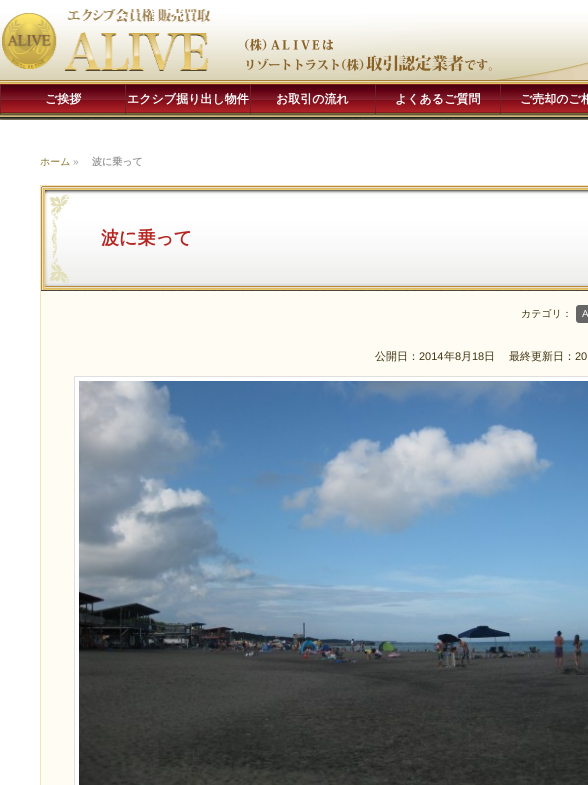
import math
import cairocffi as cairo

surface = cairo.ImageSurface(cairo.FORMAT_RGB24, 588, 785)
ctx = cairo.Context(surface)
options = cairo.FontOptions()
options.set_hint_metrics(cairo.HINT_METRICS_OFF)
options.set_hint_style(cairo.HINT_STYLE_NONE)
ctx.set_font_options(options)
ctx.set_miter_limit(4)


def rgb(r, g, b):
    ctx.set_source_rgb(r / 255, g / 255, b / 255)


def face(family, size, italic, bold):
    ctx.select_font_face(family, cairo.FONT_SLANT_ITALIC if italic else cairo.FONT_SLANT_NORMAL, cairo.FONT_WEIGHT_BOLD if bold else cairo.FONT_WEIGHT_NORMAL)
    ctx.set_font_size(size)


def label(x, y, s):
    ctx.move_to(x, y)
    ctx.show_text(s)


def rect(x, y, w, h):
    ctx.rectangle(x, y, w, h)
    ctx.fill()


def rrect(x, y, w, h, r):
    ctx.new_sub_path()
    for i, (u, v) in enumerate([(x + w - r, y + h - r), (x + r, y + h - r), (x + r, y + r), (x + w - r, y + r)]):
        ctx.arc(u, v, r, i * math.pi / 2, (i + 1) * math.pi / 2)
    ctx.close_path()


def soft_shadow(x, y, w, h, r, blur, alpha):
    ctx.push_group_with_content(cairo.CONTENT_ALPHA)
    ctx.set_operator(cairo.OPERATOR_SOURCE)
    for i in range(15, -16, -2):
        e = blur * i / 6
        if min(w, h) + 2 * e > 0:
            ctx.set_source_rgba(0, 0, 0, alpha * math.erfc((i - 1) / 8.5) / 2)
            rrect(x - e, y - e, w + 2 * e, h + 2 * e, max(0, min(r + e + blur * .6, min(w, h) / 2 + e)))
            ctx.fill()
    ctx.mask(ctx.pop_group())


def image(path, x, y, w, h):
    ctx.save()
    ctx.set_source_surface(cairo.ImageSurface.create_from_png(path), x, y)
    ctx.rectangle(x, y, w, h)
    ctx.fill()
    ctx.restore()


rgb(255, 255, 255)
ctx.paint()
image('image0.png', 0, 0, 588, 120)
image('image1.png', 245, 6, 343, 74)
image('image2.png', 2, 9, 209, 62)
rgb(0, 0, 0)
soft_shadow(0, 120, 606, 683, 0, 6, 0.75)
image('image3.png', 1, 84, 124, 30)
rgb(114, 32, 41)
rect(0, 84, 1, 30)
face('WenQuanYi Zen Hei', 12, 0, 1)
rgb(255, 255, 255)
label(45, 103, 'ご挨拶')
image('image3.png', 126, 84, 124, 30)
rgb(114, 32, 41)
rect(125, 84, 1, 30)
rgb(255, 255, 255)
label(127, 103, 'エクシブ掘り出し物件')
image('image3.png', 251, 84, 124, 30)
rgb(114, 32, 41)
rect(250, 84, 1, 30)
rgb(255, 255, 255)
label(276, 103, 'お取引の流れ')
image('image3.png', 376, 84, 124, 30)
rgb(114, 32, 41)
rect(375, 84, 1, 30)
rgb(255, 255, 255)
label(395, 103, 'よくあるご質問')
image('image4.png', 501, 84, 87, 30)
rgb(114, 32, 41)
rect(500, 84, 1, 30)
rgb(255, 255, 255)
label(520, 103, 'ご売却のご相')
rect(0, 120, 588, 665)
face('WenQuanYi Zen Hei Medium', 10, 0, 0)
rgb(133, 115, 41)
label(40, 165, 'ホーム')
face('Liberation Sans', 10, 0, 0)
rgb(153, 153, 153)
label(73, 165, '»')
face('WenQuanYi Zen Hei', 10, 0, 1)
label(92, 165, '波に乗って')
rgb(255, 253, 243)
rect(41, 291, 547, 494)
ctx.rectangle(40.5, 185.5, 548, 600)
rgb(243, 227, 182)
ctx.set_line_width(1)
ctx.stroke()
image('image5.png', 41, 186, 547, 105)
face('WenQuanYi Zen Hei', 18, 0, 1)
rgb(182, 37, 32)
label(101, 244, '波に乗って')
face('WenQuanYi Zen Hei Medium', 10, 0, 0)
rgb(61, 50, 15)
label(521, 317, 'カテゴリ：')
rgb(102, 102, 102)
rrect(576, 305, 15, 18, 3)
ctx.fill()
face('Liberation Sans', 10, 0, 0)
rgb(255, 255, 255)
label(582, 317, 'A')
face('WenQuanYi Zen Hei Medium', 11, 0, 0)
rgb(61, 50, 15)
label(375, 360, '公開日：')
face('Liberation Sans', 11, 0, 0)
label(419, 360, '2014')
face('WenQuanYi Zen Hei Medium', 11, 0, 0)
label(444, 360, '年')
face('Liberation Sans', 11, 0, 0)
label(455, 360, '8')
face('WenQuanYi Zen Hei Medium', 11, 0, 0)
label(461, 360, '月')
face('Liberation Sans', 11, 0, 0)
label(472, 360, '18')
face('WenQuanYi Zen Hei Medium', 11, 0, 0)
label(484, 360, '日')
label(509, 360, '最終更新日：')
face('Liberation Sans', 11, 0, 0)
label(575, 360, '20')
rgb(255, 255, 255)
ctx.rectangle(74.5, 376.5, 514, 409)
ctx.fill_preserve()
rgb(223, 223, 223)
ctx.stroke()
image('image6.png', 79, 381, 509, 404)
surface.write_to_png('render.png')
